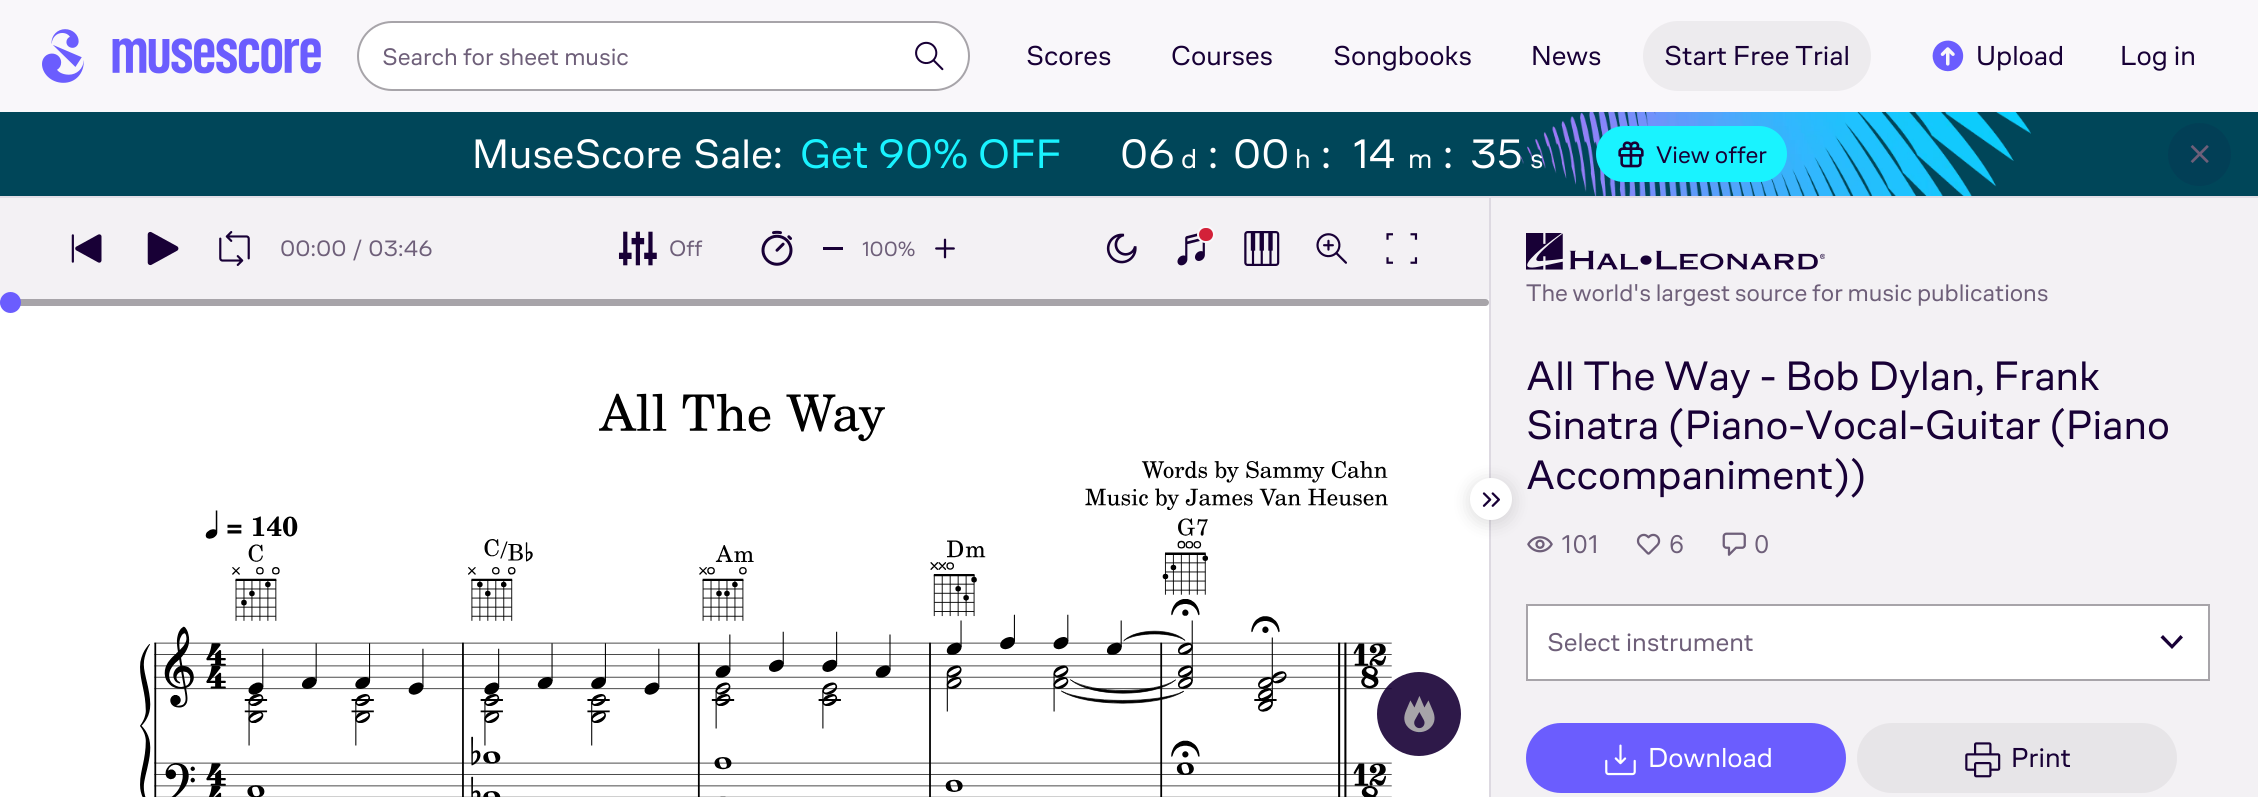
import math
import cairocffi as cairo

surface = cairo.ImageSurface(cairo.FORMAT_RGB24, 2258, 797)
ctx = cairo.Context(surface)
options = cairo.FontOptions()
options.set_hint_metrics(cairo.HINT_METRICS_OFF)
options.set_hint_style(cairo.HINT_STYLE_NONE)
ctx.set_font_options(options)
ctx.set_miter_limit(4)


def rgb(r, g, b):
    ctx.set_source_rgb(r / 255, g / 255, b / 255)


def face(family, size, italic, bold):
    ctx.select_font_face(family, cairo.FONT_SLANT_ITALIC if italic else cairo.FONT_SLANT_NORMAL, cairo.FONT_WEIGHT_BOLD if bold else cairo.FONT_WEIGHT_NORMAL)
    ctx.set_font_size(size)


def label(x, y, s):
    ctx.move_to(x, y)
    ctx.show_text(s)


def tracked(x, y, s, letter, word):
    ctx.move_to(x, y)
    for ch in s:
        ctx.show_text(ch)
        ctx.rel_move_to(letter + word * (ch == ' '), 0)


def rect(x, y, w, h):
    ctx.rectangle(x, y, w, h)
    ctx.fill()


def rrect(x, y, w, h, r):
    ctx.new_sub_path()
    for i, (u, v) in enumerate([(x + w - r, y + h - r), (x + r, y + h - r), (x + r, y + r), (x + w - r, y + r)]):
        ctx.arc(u, v, r, i * math.pi / 2, (i + 1) * math.pi / 2)
    ctx.close_path()


def soft_shadow(x, y, w, h, r, blur, alpha):
    ctx.push_group_with_content(cairo.CONTENT_ALPHA)
    ctx.set_operator(cairo.OPERATOR_SOURCE)
    for i in range(15, -16, -2):
        e = blur * i / 6
        if min(w, h) + 2 * e > 0:
            ctx.set_source_rgba(0, 0, 0, alpha * math.erfc((i - 1) / 8.5) / 2)
            rrect(x - e, y - e, w + 2 * e, h + 2 * e, max(0, min(r + e + blur * .6, min(w, h) / 2 + e)))
            ctx.fill()
    ctx.mask(ctx.pop_group())


def image(path, x, y, w, h):
    ctx.save()
    ctx.set_source_surface(cairo.ImageSurface.create_from_png(path), x, y)
    ctx.rectangle(x, y, w, h)
    ctx.fill()
    ctx.restore()


rgb(249, 247, 250)
ctx.paint()
rgb(226, 222, 230)
rect(0, 196, 2258, 2)
image('image0.png', 42, 29, 279, 54)
rgb(255, 255, 255)
rrect(358, 22, 611, 68, 34)
ctx.fill_preserve()
rgb(167, 164, 169)
ctx.stroke()
face('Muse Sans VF', 24.5, 0, 0)
rgb(110, 95, 121)
label(382, 65, 'Search for sheet music')
image('image1.png', 915, 41, 29, 30)
face('Muse Sans VF', 28, 0, 0)
rgb(24, 0, 54)
label(1026, 65, 'Scores')
label(1171, 65, 'Courses')
label(1333, 65, 'Songbooks')
label(1531, 65, 'News')
rgb(237, 235, 238)
rrect(1643, 21, 228, 70, 35)
ctx.fill()
rgb(24, 0, 54)
label(1664, 65, 'Start Free Trial')
image('image2.png', 1932, 40, 32, 32)
label(1976, 65, 'Upload')
label(2120, 65, 'Log in')
rgb(0, 70, 89)
rect(0, 112, 2258, 84)
face('Muse Sans VF', 42, 0, 0)
rgb(255, 255, 255)
label(472, 168, 'MuseScore')
label(693, 168, 'Sale:')
rgb(25, 243, 255)
label(800, 168, 'Get')
label(878, 168, '90%')
label(978, 168, 'OFF')
rgb(255, 255, 255)
label(1120, 168, '06')
face('Muse Sans VF', 28, 0, 0)
label(1181, 168, 'd')
face('Muse Sans VF', 42, 0, 0)
label(1208, 168, ':')
label(1233, 168, '00')
face('Muse Sans VF', 28, 0, 0)
label(1295, 168, 'h')
face('Muse Sans VF', 42, 0, 0)
label(1321, 168, ':')
label(1353, 168, '14')
face('Muse Sans VF', 28, 0, 0)
label(1408, 168, 'm')
face('Muse Sans VF', 42, 0, 0)
label(1443, 168, ':')
image('image3.png', 1519, 112, 512, 84)
label(1470, 168, '35')
face('Muse Sans VF', 28, 0, 0)
label(1530, 168, 's')
rgb(25, 243, 255)
rrect(1596, 126, 191, 56, 28)
ctx.fill()
image('image4.png', 1618, 141, 26, 27)
face('Muse Sans VF', 24.5, 0, 0)
rgb(24, 0, 54)
label(1656, 163, 'View offer')
rgb(2, 63, 86)
ctx.new_path()
ctx.arc(2199.5, 154.5, 31.5, 0, 2 * math.pi)
ctx.fill()
image('image5.png', 2190, 145, 19, 18)
rgb(255, 255, 255)
rect(0, 299, 1489, 498)
rgb(167, 164, 169)
rrect(0, 299, 1489, 7, 3.5)
ctx.fill()
rgb(243, 241, 244)
rect(0, 198, 1489, 101)
rgb(107, 93, 254)
ctx.arc(10.5, 302.5, 10.5, 0, 2 * math.pi)
ctx.fill()
image('image6.png', 71, 234, 31, 29)
image('image7.png', 147, 231, 32, 35)
image('image8.png', 219, 231, 31, 35)
face('Muse Sans VF', 22.75, 0, 0)
rgb(110, 95, 121)
label(280, 256, '00:00 / 03:46')
image('image9.png', 618, 231, 39, 35)
label(669, 256, 'Off')
image('image10.png', 761, 230, 32, 36)
rgb(24, 0, 54)
rect(823, 247, 20, 3)
face('Muse Sans VF', 21, 0, 0)
rgb(110, 95, 121)
label(862, 256, '100%')
image('image11.png', 935, 238, 20, 21)
image('image12.png', 1106, 233, 31, 31)
image('image13.png', 1177, 233, 28, 33)
rgb(211, 33, 57)
rrect(1198, 227, 16, 15, 7.5)
ctx.fill_preserve()
rgb(249, 247, 250)
ctx.stroke()
image('image14.png', 1244, 231, 36, 35)
image('image15.png', 1316, 233, 31, 31)
image('image16.png', 1386, 233, 32, 31)
image('image17.png', 140, 393, 1252, 404)
ctx.set_source_rgba(0.094, 0, 0.212, 0.9)
ctx.arc(1419, 714, 42, 0, 2 * math.pi)
ctx.fill()
image('image18.png', 1404, 696, 31, 37)
rgb(243, 241, 244)
rect(1491, 198, 767, 599)
rgb(221, 217, 225)
rect(1489, 198, 2, 599)
image('image21.png', 1527, 536, 26, 17)
rgb(0, 0, 0)
soft_shadow(1470, 481, 42, 42, 21, 9, 0.14)
rgb(255, 255, 255)
ctx.arc(1491, 499, 21, 0, 2 * math.pi)
ctx.fill()
image('image19.png', 1482, 492, 18, 15)
image('image20.png', 1526, 233, 299, 37)
face('Muse Sans VF', 24.5, 0, 0)
rgb(110, 95, 121)
tracked(1526, 301, 'The world\'s largest source for music publications', 0, -0.5)
face('Muse Sans VF', 42, 0, 0)
rgb(24, 0, 54)
label(1526, 390, 'All The Way - Bob Dylan, Frank')
label(1526, 439, 'Sinatra (Piano-Vocal-Guitar (Piano')
label(1526, 489, 'Accompaniment))')
face('Inter', 24.5, 0, 0)
rgb(110, 95, 121)
label(1561, 553, '101')
image('image22.png', 1636, 533, 25, 22)
label(1669, 553, '6')
image('image23.png', 1722, 532, 24, 24)
label(1754, 553, '0')
rgb(255, 255, 255)
ctx.rectangle(1527, 605, 682, 75)
ctx.fill_preserve()
rgb(167, 164, 169)
ctx.stroke()
face('Muse Sans VF', 26.25, 0, 0)
rgb(110, 95, 121)
label(1547, 651, 'Select instrument')
rgb(24, 0, 54)
ctx.set_fill_rule(cairo.FILL_RULE_EVEN_ODD)
ctx.new_path()
ctx.move_to(2183, 637.5)
ctx.line_to(2172, 649)
ctx.line_to(2160.5, 637.5)
ctx.line_to(2163, 635)
ctx.line_to(2172, 644.5)
ctx.line_to(2180.5, 635)
ctx.close_path()
ctx.fill()
rgb(107, 93, 254)
rrect(1526, 723, 320, 70, 35)
ctx.fill()
image('image24.png', 1605, 744, 31, 32)
face('Muse Sans VF', 28, 0, 0)
rgb(255, 255, 255)
label(1648, 767, 'Download')
rgb(231, 229, 232)
rrect(1857, 723, 320, 70, 35)
ctx.fill()
image('image25.png', 1965, 742, 36, 36)
rgb(24, 0, 54)
label(2011, 767, 'Print')
surface.write_to_png('render.png')
